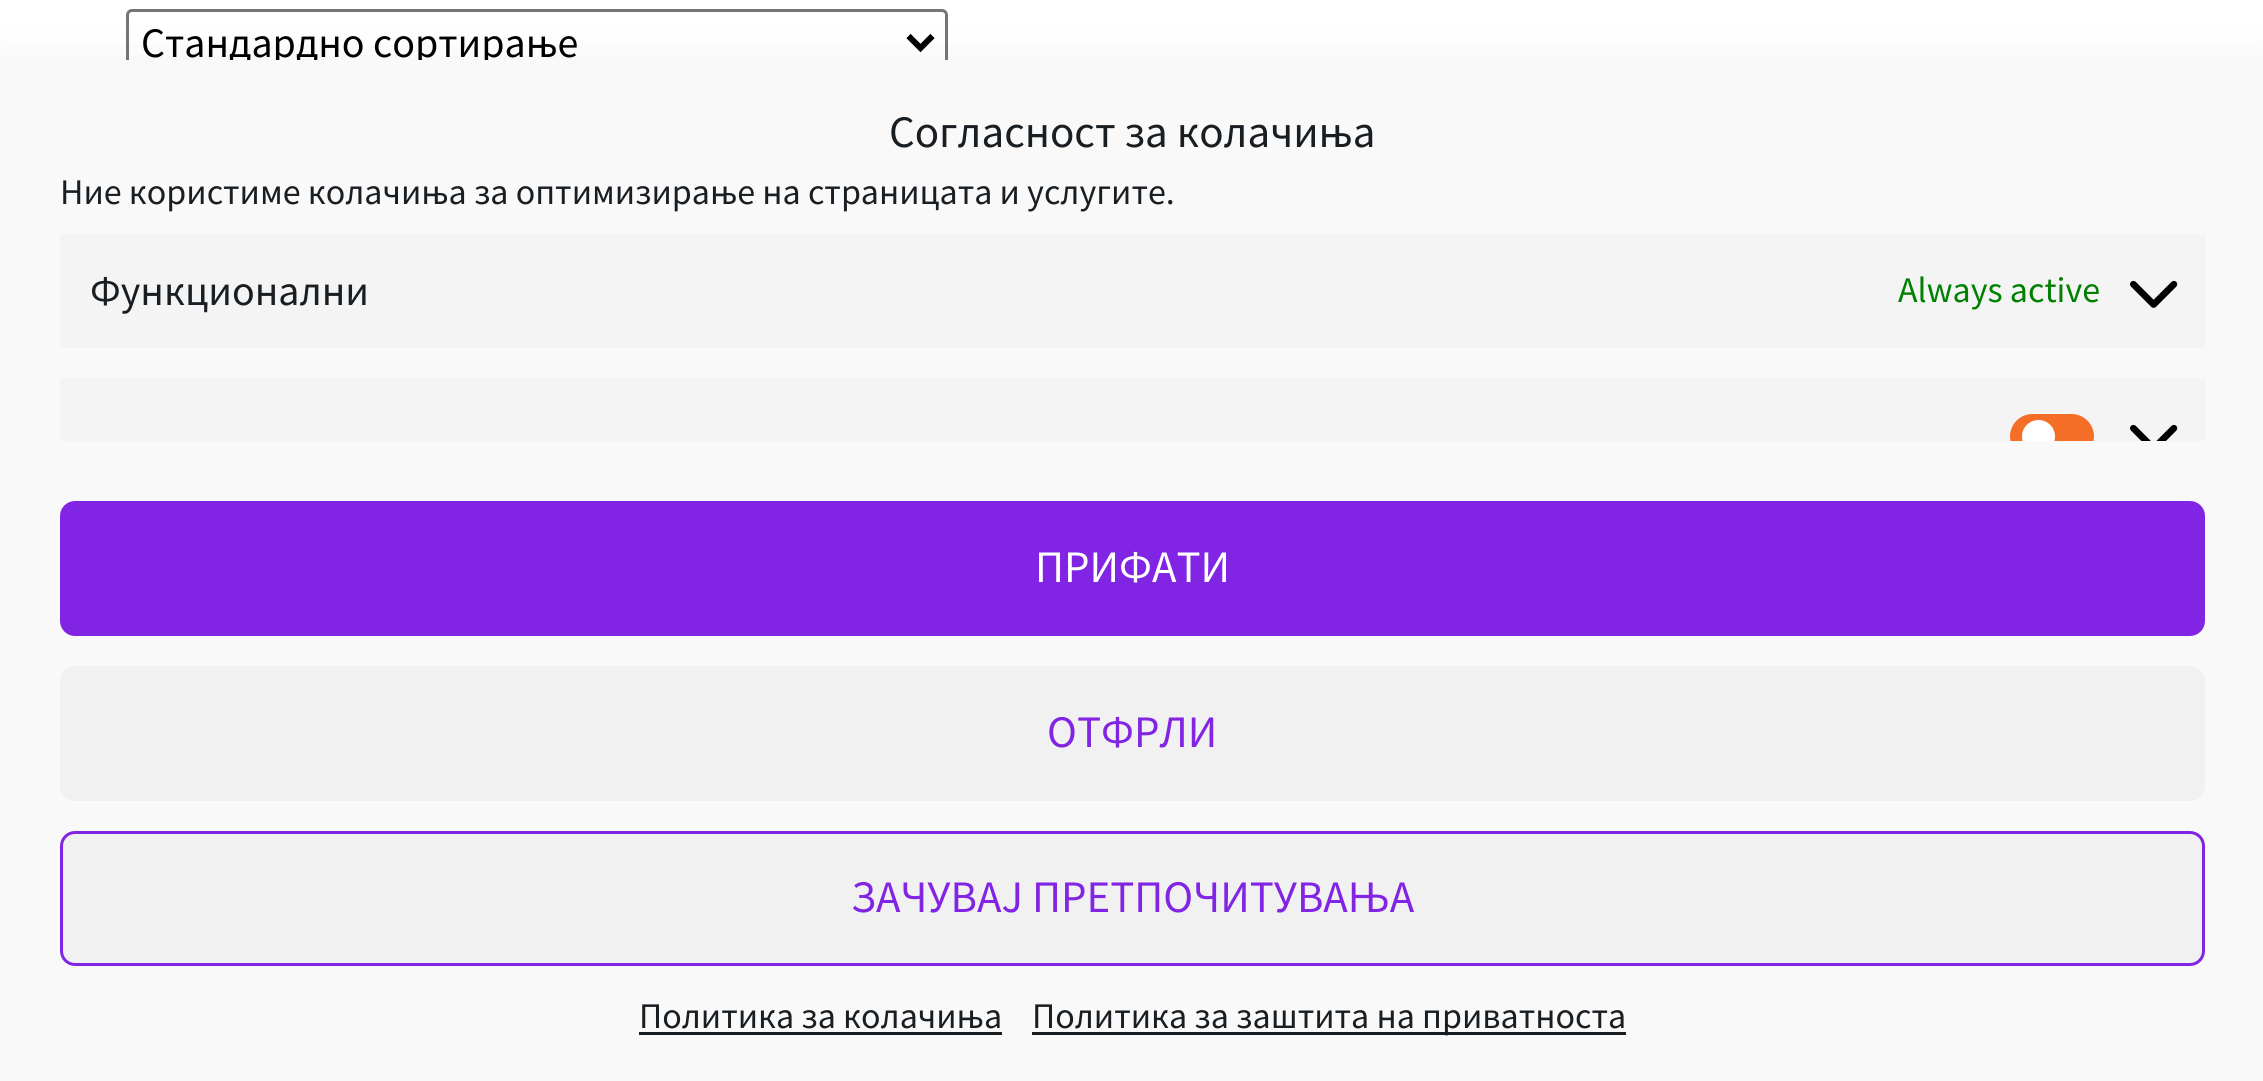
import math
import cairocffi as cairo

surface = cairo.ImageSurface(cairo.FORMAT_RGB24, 2263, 1081)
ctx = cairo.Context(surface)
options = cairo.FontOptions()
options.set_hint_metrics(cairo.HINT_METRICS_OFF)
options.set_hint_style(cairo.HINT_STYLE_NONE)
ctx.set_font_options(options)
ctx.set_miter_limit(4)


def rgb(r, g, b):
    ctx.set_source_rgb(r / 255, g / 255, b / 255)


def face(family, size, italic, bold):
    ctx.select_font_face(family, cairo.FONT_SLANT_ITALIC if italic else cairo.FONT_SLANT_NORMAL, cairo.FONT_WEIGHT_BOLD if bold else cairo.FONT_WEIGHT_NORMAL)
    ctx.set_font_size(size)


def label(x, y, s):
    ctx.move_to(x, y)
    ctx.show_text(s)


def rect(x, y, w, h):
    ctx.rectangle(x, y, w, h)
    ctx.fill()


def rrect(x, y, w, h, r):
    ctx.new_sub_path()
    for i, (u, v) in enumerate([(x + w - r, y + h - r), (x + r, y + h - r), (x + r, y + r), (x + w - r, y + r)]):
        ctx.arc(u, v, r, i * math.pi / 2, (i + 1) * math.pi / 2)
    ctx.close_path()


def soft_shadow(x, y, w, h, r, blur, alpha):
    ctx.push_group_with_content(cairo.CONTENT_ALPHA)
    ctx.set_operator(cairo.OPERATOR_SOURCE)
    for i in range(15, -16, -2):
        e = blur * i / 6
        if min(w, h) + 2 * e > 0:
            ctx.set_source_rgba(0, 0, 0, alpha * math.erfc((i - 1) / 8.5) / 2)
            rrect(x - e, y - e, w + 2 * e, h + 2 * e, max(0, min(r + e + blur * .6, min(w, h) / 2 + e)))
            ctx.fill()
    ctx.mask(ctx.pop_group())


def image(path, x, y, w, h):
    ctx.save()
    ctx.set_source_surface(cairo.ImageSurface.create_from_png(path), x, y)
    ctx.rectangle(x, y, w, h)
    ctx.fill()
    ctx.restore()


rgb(255, 255, 255)
ctx.paint()
rrect(127.5, 10.5, 819, 63, 4.5)
rgb(118, 118, 118)
ctx.set_line_width(3)
ctx.stroke()
ctx.new_path()
ctx.move_to(908.5, 36)
ctx.line_to(920.5, 48)
ctx.line_to(932.5, 36)
rgb(0, 0, 0)
ctx.set_line_width(6)
ctx.stroke()
face('Source Sans Pro', 42, 0, 0)
label(141, 57, 'Стандардно сортирање')
rgb(0, 0, 0)
soft_shadow(0, 90, 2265, 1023, 0, 30, 0.19)
rgb(249, 249, 249)
rect(0, 60, 2263, 1021)
face('Source Sans Pro', 45, 0, 0)
rgb(25, 30, 35)
label(889, 147, 'Согласност за колачиња')
face('Source Sans Pro', 36, 0, 0)
label(60, 204, 'Ние користиме колачиња за оптимизирање на страницата и услугите.')
rgb(244, 244, 244)
rect(60, 234, 2145, 114)
face('Source Sans Pro', 42, 0, 0)
rgb(25, 30, 35)
label(90, 305, 'Функционални')
face('Source Sans Pro', 36, 0, 0)
rgb(0, 128, 0)
label(1898, 302, 'Always active')
image('image0.png', 2130, 280, 48, 28)
rgb(244, 244, 244)
rect(60, 378, 2145, 63)
ctx.save()
ctx.rectangle(60, 165, 2145, 276)
ctx.clip()
rgb(245, 110, 40)
rrect(2010, 414, 84, 45, 22.5)
ctx.fill()
rgb(255, 255, 255)
ctx.arc(2038.5, 436.5, 16.5, 0, 2 * math.pi)
ctx.fill()
ctx.restore()
image('image1.png', 2130, 424, 48, 17)
rgb(130, 36, 227)
rrect(61.5, 502.5, 2142, 132, 13.5)
ctx.fill_preserve()
ctx.set_line_width(3)
ctx.stroke()
face('Source Sans Pro', 45, 0, 0)
rgb(255, 255, 255)
label(1035, 582, 'ПРИФАТИ')
rgb(241, 241, 241)
rrect(60, 666, 2145, 135, 15)
ctx.fill()
rgb(130, 36, 227)
label(1047, 747, 'ОТФРЛИ')
rgb(241, 241, 241)
rrect(61.5, 832.5, 2142, 132, 13.5)
ctx.fill_preserve()
rgb(130, 36, 227)
ctx.stroke()
label(851, 912, 'ЗАЧУВАЈ ПРЕТПОЧИТУВАЊА')
face('Source Sans Pro', 36, 0, 0)
rgb(25, 30, 35)
label(639, 1028, 'Политика за колачиња')
rect(639, 1032, 363, 3)
rect(1032, 1032, 594, 3)
label(1032, 1028, 'Политика за заштита на приватноста')
surface.write_to_png('render.png')
